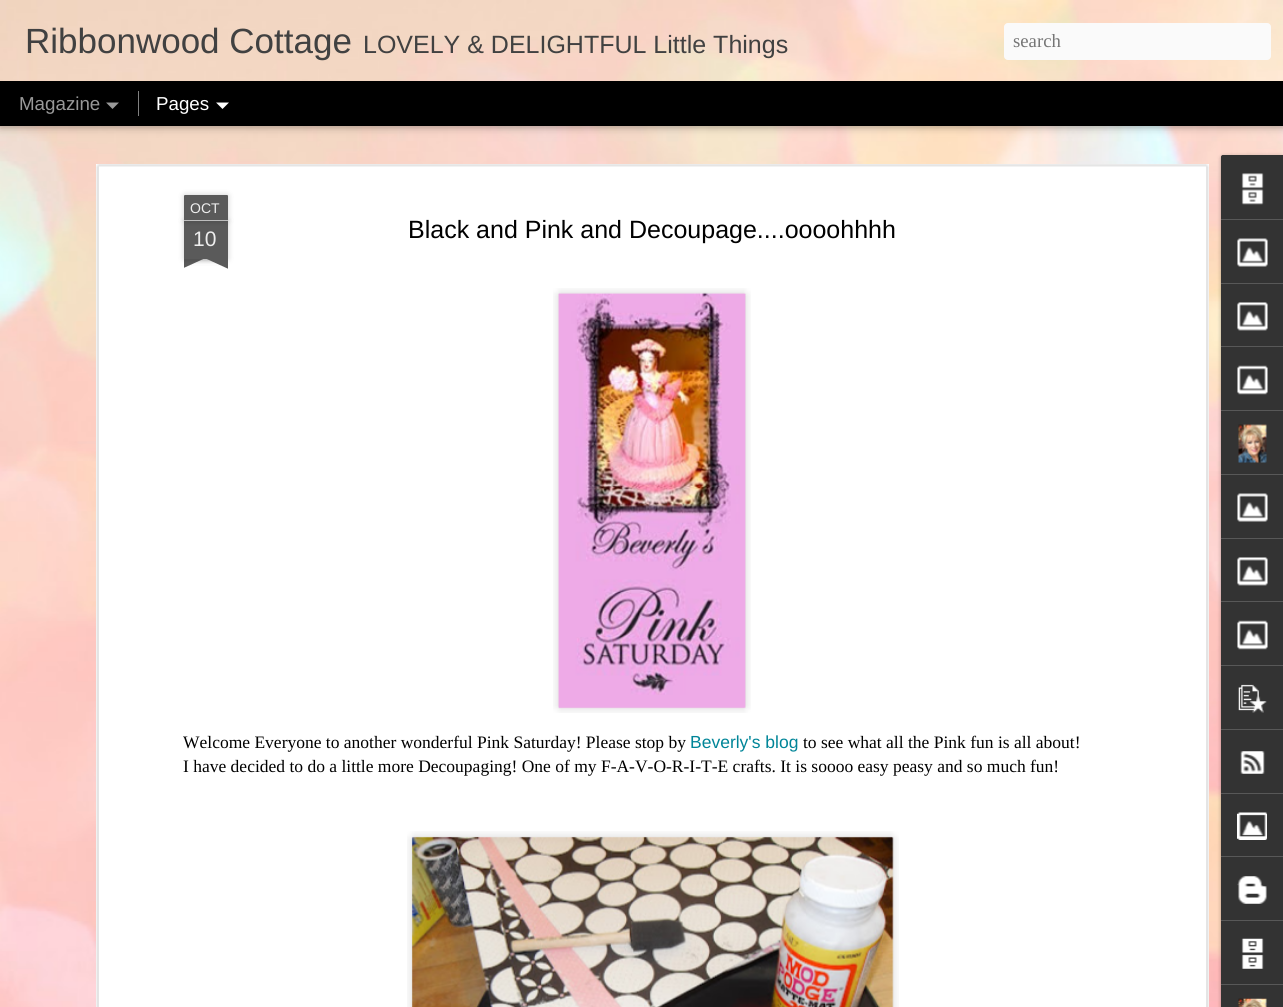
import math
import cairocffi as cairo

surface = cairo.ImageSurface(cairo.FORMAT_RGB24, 1283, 1007)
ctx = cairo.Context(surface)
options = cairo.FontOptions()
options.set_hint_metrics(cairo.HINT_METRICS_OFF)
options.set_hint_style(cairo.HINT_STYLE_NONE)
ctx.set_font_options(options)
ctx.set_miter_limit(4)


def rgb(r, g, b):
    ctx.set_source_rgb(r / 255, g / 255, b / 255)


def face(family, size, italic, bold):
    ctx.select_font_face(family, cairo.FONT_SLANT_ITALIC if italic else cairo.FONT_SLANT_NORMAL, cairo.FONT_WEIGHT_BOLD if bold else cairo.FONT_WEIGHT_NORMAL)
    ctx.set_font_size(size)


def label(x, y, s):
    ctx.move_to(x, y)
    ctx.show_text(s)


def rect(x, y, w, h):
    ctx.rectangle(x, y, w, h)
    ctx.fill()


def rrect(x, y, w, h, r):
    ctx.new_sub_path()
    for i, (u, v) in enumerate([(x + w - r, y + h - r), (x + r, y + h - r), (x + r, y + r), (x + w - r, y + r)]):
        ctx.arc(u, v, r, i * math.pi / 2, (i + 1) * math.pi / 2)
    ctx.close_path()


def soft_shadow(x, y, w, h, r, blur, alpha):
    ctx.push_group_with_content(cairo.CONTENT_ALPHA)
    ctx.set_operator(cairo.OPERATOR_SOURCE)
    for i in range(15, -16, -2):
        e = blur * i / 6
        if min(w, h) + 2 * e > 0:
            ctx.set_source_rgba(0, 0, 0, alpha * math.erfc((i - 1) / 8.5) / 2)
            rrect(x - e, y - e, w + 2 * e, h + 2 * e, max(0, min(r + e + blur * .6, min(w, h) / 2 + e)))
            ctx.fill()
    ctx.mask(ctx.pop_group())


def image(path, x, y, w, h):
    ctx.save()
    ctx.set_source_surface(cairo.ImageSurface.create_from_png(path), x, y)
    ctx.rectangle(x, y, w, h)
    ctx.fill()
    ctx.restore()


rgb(0, 0, 0)
ctx.paint()
image('image1.png', 0, 126, 1283, 881)
soft_shadow(0, 81, 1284, 44, 0, 5, 0.5)
image('image0.png', 0, 0, 1283, 81)
face('Liberation Sans', 35, 0, 0)
rgb(65, 65, 65)
label(25, 53, 'Ribbonwood Cottage')
face('Liberation Sans', 25, 0, 0)
label(363, 53, 'LOVELY & DELIGHTFUL Little Things')
rgb(250, 250, 250)
rrect(1004, 23, 267, 37, 4)
ctx.fill()
face('Liberation Serif', 18.75, 0, 0)
rgb(117, 117, 117)
label(1013, 47, 'search')
face('Liberation Sans', 18.75, 0, 0)
rgb(153, 153, 153)
label(19, 110, 'Magazine')
ctx.new_path()
ctx.move_to(106, 102.5)
ctx.line_to(119, 102.5)
ctx.line_to(112.5, 109)
ctx.close_path()
ctx.fill()
rgb(128, 128, 128)
rect(138, 91, 1, 25)
rgb(255, 255, 255)
label(156, 110, 'Pages')
ctx.new_path()
ctx.move_to(216, 102.5)
ctx.line_to(229, 102.5)
ctx.line_to(222.5, 109)
ctx.close_path()
ctx.fill()
rect(96, 164, 1113, 843)
image('image2.png', 96, 164, 1113, 843)
rgb(0, 0, 0)
soft_shadow(184, 221, 44, 38, 0, 3, 0.2)
rgb(90, 90, 90)
rect(184, 221, 44, 38)
rgb(0, 0, 0)
soft_shadow(184, 195, 44, 26, 1, 3, 0.2)
rgb(90, 90, 90)
ctx.new_path()
ctx.move_to(185, 195)
ctx.line_to(227, 195)
ctx.curve_to(227.5, 195, 228, 195.5, 228, 196)
ctx.line_to(228, 221)
ctx.line_to(184, 221)
ctx.line_to(184, 196)
ctx.curve_to(184, 195.5, 184.5, 195, 185, 195)
ctx.close_path()
ctx.fill()
rgb(189, 189, 189)
rect(184, 220, 44, 1)
face('Liberation Sans', 14, 0, 0)
rgb(238, 238, 238)
label(190, 213, 'OCT')
face('Liberation Sans', 21, 0, 0)
label(193, 246, '10')
ctx.save()
ctx.rectangle(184, 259, 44, 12)
ctx.clip()
rgb(0, 0, 0)
soft_shadow(173, 246, 62, 13, 0, 3, 0.2)
ctx.restore()
ctx.save()
ctx.rectangle(184, 259, 44, 12)
ctx.clip()
rgb(90, 90, 90)
ctx.new_path()
ctx.move_to(172, 260)
ctx.line_to(229, 234)
ctx.line_to(234, 245)
ctx.line_to(177, 271)
ctx.close_path()
ctx.fill()
ctx.restore()
ctx.save()
ctx.rectangle(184, 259, 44, 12)
ctx.clip()
rgb(0, 0, 0)
soft_shadow(176, 246, 63, 13, 0, 3, 0.2)
ctx.restore()
ctx.save()
ctx.rectangle(184, 259, 44, 12)
ctx.clip()
rgb(90, 90, 90)
ctx.new_path()
ctx.move_to(181, 234)
ctx.line_to(238, 260)
ctx.line_to(233, 271)
ctx.line_to(176, 245)
ctx.close_path()
ctx.fill()
ctx.restore()
face('Liberation Sans', 25, 0, 0)
rgb(0, 0, 0)
label(408, 238, 'Black and Pink and Decoupage....oooohhhh')
image('image3.png', 553, 288, 198, 425)
image('image4.png', 558, 292, 188, 417)
face('Liberation Serif', 17.5, 0, 0)
label(183, 748, 'Welcome Everyone to another wonderful Pink Saturday! Please stop by')
face('Liberation Sans', 17.5, 0, 0)
rgb(0, 133, 152)
label(690, 748, 'Beverly\'s blog')
face('Liberation Serif', 17.5, 0, 0)
rgb(0, 0, 0)
label(803, 748, 'to see what all the Pink fun is all about!')
label(183, 772, 'I have decided to do a little more Decoupaging! One of my F-A-V-O-R-I-T-E crafts. It is soooo easy peasy and so much fun!')
image('image5.png', 407, 831, 492, 176)
image('image6.png', 411, 836, 483, 171)
rgb(0, 0, 0)
soft_shadow(1221, 156, 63, 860, 2.5, 2, 0.3)
rgb(51, 51, 51)
ctx.new_path()
ctx.move_to(1223.5, 155)
ctx.line_to(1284, 155)
ctx.line_to(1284, 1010)
ctx.line_to(1223.5, 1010)
ctx.curve_to(1222, 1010, 1221, 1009, 1221, 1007.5)
ctx.line_to(1221, 157.5)
ctx.curve_to(1221, 156, 1222, 155, 1223.5, 155)
ctx.close_path()
ctx.fill()
ctx.new_path()
ctx.move_to(1223.5, 155)
ctx.line_to(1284, 155)
ctx.line_to(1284, 219)
ctx.line_to(1221, 219)
ctx.line_to(1221, 157.5)
ctx.curve_to(1221, 156, 1222, 155, 1223.5, 155)
ctx.close_path()
ctx.fill()
image('image7.png', 1241, 173, 23, 32)
rgb(88, 88, 88)
rect(1221, 219, 62, 1)
image('image8.png', 1237, 238, 31, 29)
rect(1221, 283, 62, 1)
image('image9.png', 1237, 302, 31, 29)
rect(1221, 346, 62, 1)
image('image10.png', 1237, 365, 31, 30)
rect(1221, 410, 62, 1)
image('image11.png', 1238, 424, 29, 39)
rect(1221, 474, 62, 1)
image('image8.png', 1237, 493, 31, 29)
rect(1221, 538, 62, 1)
image('image9.png', 1237, 557, 31, 29)
rect(1221, 601, 62, 1)
image('image10.png', 1237, 620, 31, 30)
rect(1221, 665, 62, 1)
image('image12.png', 1238, 684, 29, 29)
rect(1221, 729, 62, 1)
image('image13.png', 1240, 751, 25, 23)
rect(1221, 793, 62, 1)
image('image14.png', 1237, 812, 30, 28)
rect(1221, 856, 62, 1)
image('image15.png', 1237, 876, 30, 28)
rect(1221, 920, 62, 1)
image('image16.png', 1241, 938, 23, 31)
rect(1221, 984, 62, 1)
image('image17.png', 1238, 998, 29, 9)
surface.write_to_png('render.png')
